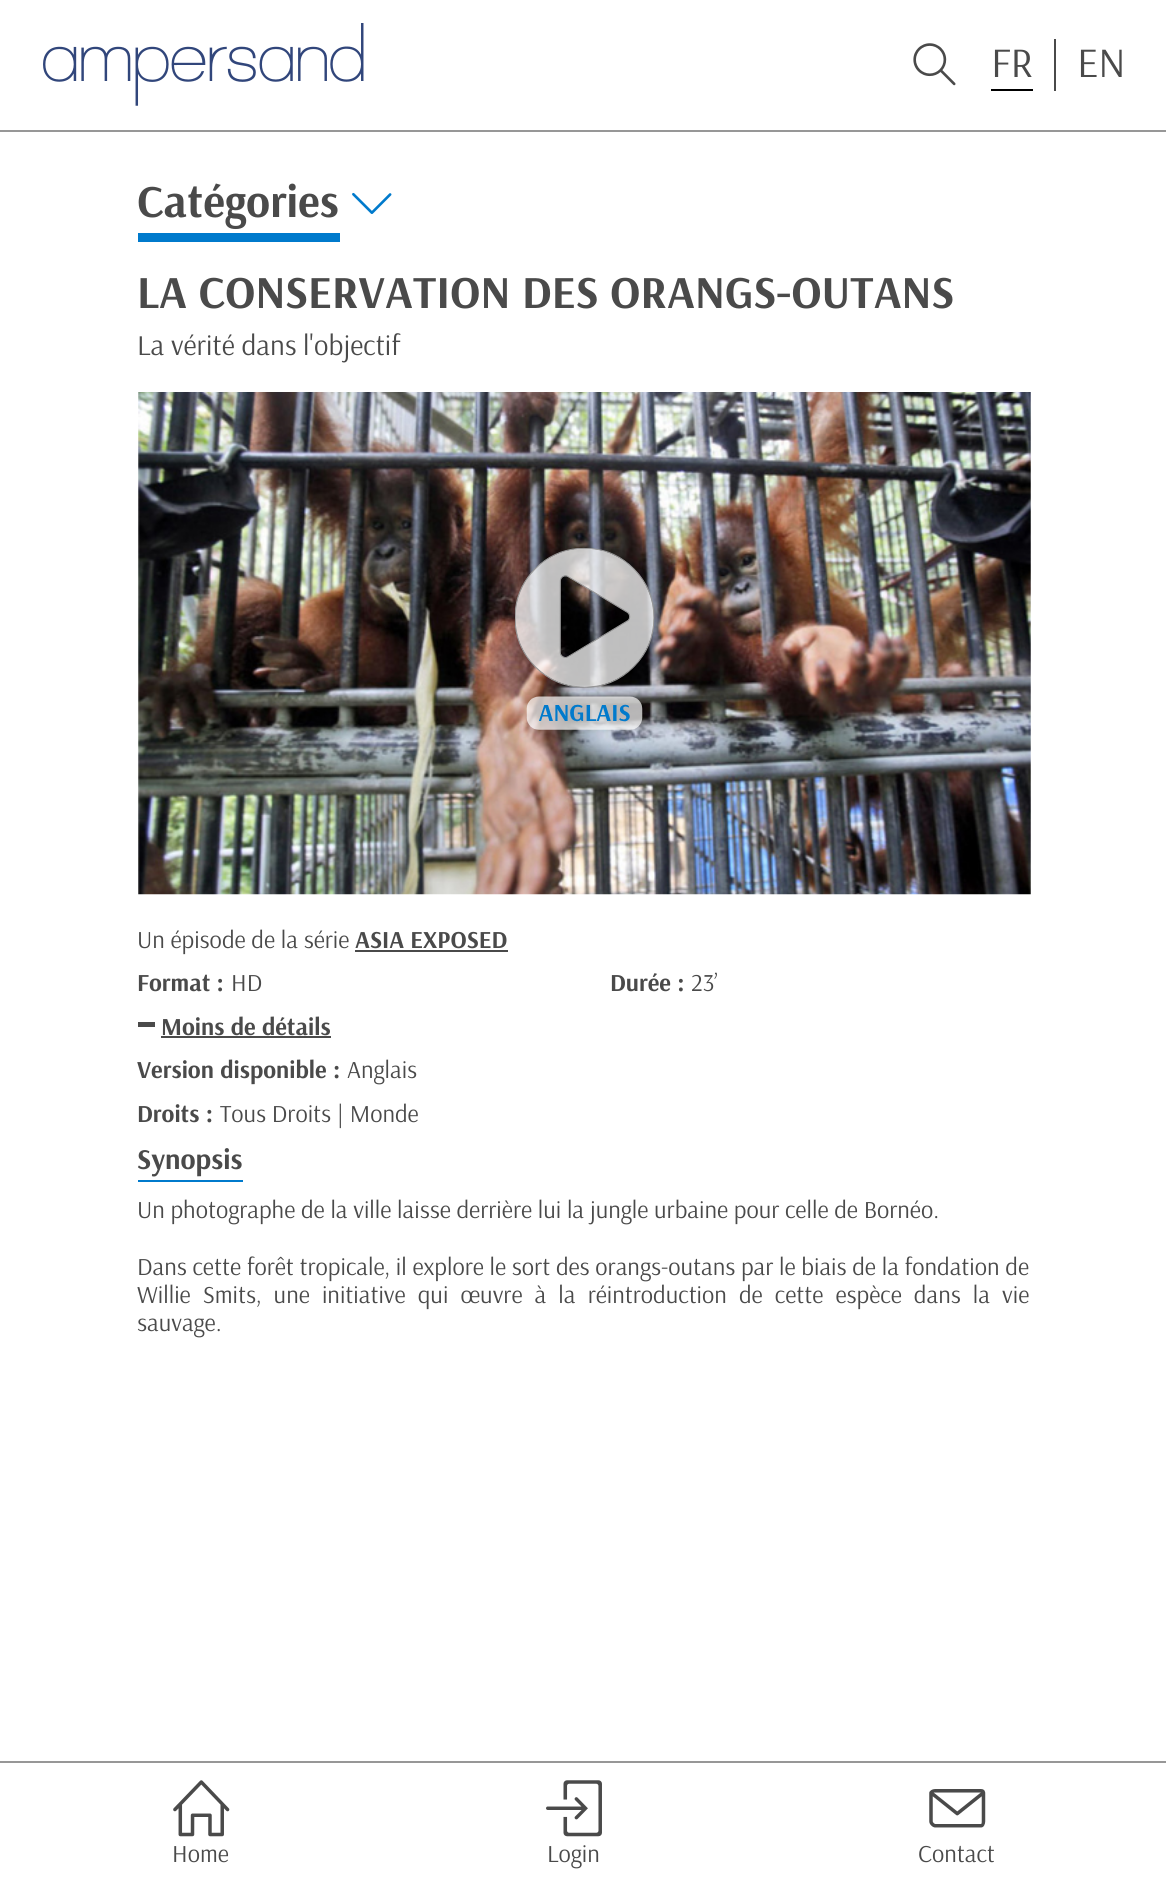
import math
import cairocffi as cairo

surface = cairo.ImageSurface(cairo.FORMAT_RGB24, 1166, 1882)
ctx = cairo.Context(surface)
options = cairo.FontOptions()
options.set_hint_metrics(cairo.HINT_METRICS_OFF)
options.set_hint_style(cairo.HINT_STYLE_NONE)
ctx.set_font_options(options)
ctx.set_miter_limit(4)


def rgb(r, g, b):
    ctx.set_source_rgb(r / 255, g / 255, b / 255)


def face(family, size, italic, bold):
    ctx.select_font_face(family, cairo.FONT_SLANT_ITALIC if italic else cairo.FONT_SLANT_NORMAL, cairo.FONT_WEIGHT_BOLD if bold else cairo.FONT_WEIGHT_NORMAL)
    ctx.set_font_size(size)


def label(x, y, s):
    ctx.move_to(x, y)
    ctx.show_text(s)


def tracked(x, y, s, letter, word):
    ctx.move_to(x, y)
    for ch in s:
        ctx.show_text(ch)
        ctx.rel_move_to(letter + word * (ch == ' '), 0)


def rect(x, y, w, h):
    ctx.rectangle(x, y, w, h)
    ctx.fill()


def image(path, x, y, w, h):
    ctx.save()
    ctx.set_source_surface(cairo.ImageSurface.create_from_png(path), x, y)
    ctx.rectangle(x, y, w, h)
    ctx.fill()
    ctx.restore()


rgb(255, 255, 255)
ctx.paint()
rgb(151, 151, 151)
rect(0, 130, 1166, 2)
image('image0.png', 43, 23, 321, 83)
image('image1.png', 913, 43, 43, 43)
rgb(0, 0, 0)
rect(991, 89, 42, 2)
face('Arsenal', 42, 0, 0)
rgb(74, 74, 74)
label(991, 77, 'FR')
rect(1054, 39, 2, 52)
label(1077, 77, 'EN')
rgb(0, 122, 204)
rect(138, 233, 202, 9)
face('Arsenal', 45.9, 0, 1)
rgb(74, 74, 74)
label(137, 217, 'Catégories')
image('image2.png', 352, 192, 40, 22)
label(137, 308, 'LA CONSERVATION DES ORANGS-OUTANS')
face('Arsenal', 28.75, 0, 0)
label(137, 355, 'La vérité dans l\'objectif')
image('image3.png', 138, 392, 893, 503)
image('image4.png', 515, 548, 140, 182)
face('Arsenal', 24.5, 0, 0)
label(137, 948, 'Un épisode de la série')
face('Arsenal', 24.5, 0, 1)
label(355, 948, 'ASIA EXPOSED')
rect(355, 950, 153, 2)
label(137, 991, 'Format :')
face('Arsenal', 24.5, 0, 0)
label(231, 991, 'HD')
face('Arsenal', 24.5, 0, 1)
label(610, 991, 'Durée :')
face('Arsenal', 24.5, 0, 0)
label(691, 991, '23’')
rect(138, 1022, 17, 5)
face('Arsenal', 24.5, 0, 1)
label(161, 1035, 'Moins de détails')
rect(161, 1036, 170, 2)
label(137, 1078, 'Version disponible :')
face('Arsenal', 24.5, 0, 0)
label(347, 1078, 'Anglais')
face('Arsenal', 24.5, 0, 1)
label(137, 1122, 'Droits :')
face('Arsenal', 24.5, 0, 0)
label(220, 1122, 'Tous Droits | Monde')
rgb(0, 122, 204)
rect(138, 1180, 105, 2)
face('Arsenal', 28.75, 0, 1)
rgb(74, 74, 74)
label(137, 1169, 'Synopsis')
face('Arsenal', 24.5, 0, 0)
label(137, 1218, 'Un photographe de la ville laisse derrière lui la jungle urbaine pour celle de Bornéo.')
label(137, 1275, 'Dans cette forêt tropicale, il explore le sort des orangs-outans par le biais de la fondation de')
tracked(137, 1303, 'Willie Smits, une initiative qui œuvre à la réintroduction de cette espèce dans la vie', 0, 6.4)
label(137, 1331, 'sauvage.')
rgb(151, 151, 151)
rect(0, 1761, 1166, 2)
image('image5.png', 173, 1780, 57, 57)
rgb(74, 74, 74)
label(172, 1862, 'Home')
image('image6.png', 546, 1780, 56, 57)
label(547, 1862, 'Login')
image('image7.png', 929, 1789, 57, 39)
label(918, 1862, 'Contact')
surface.write_to_png('render.png')
